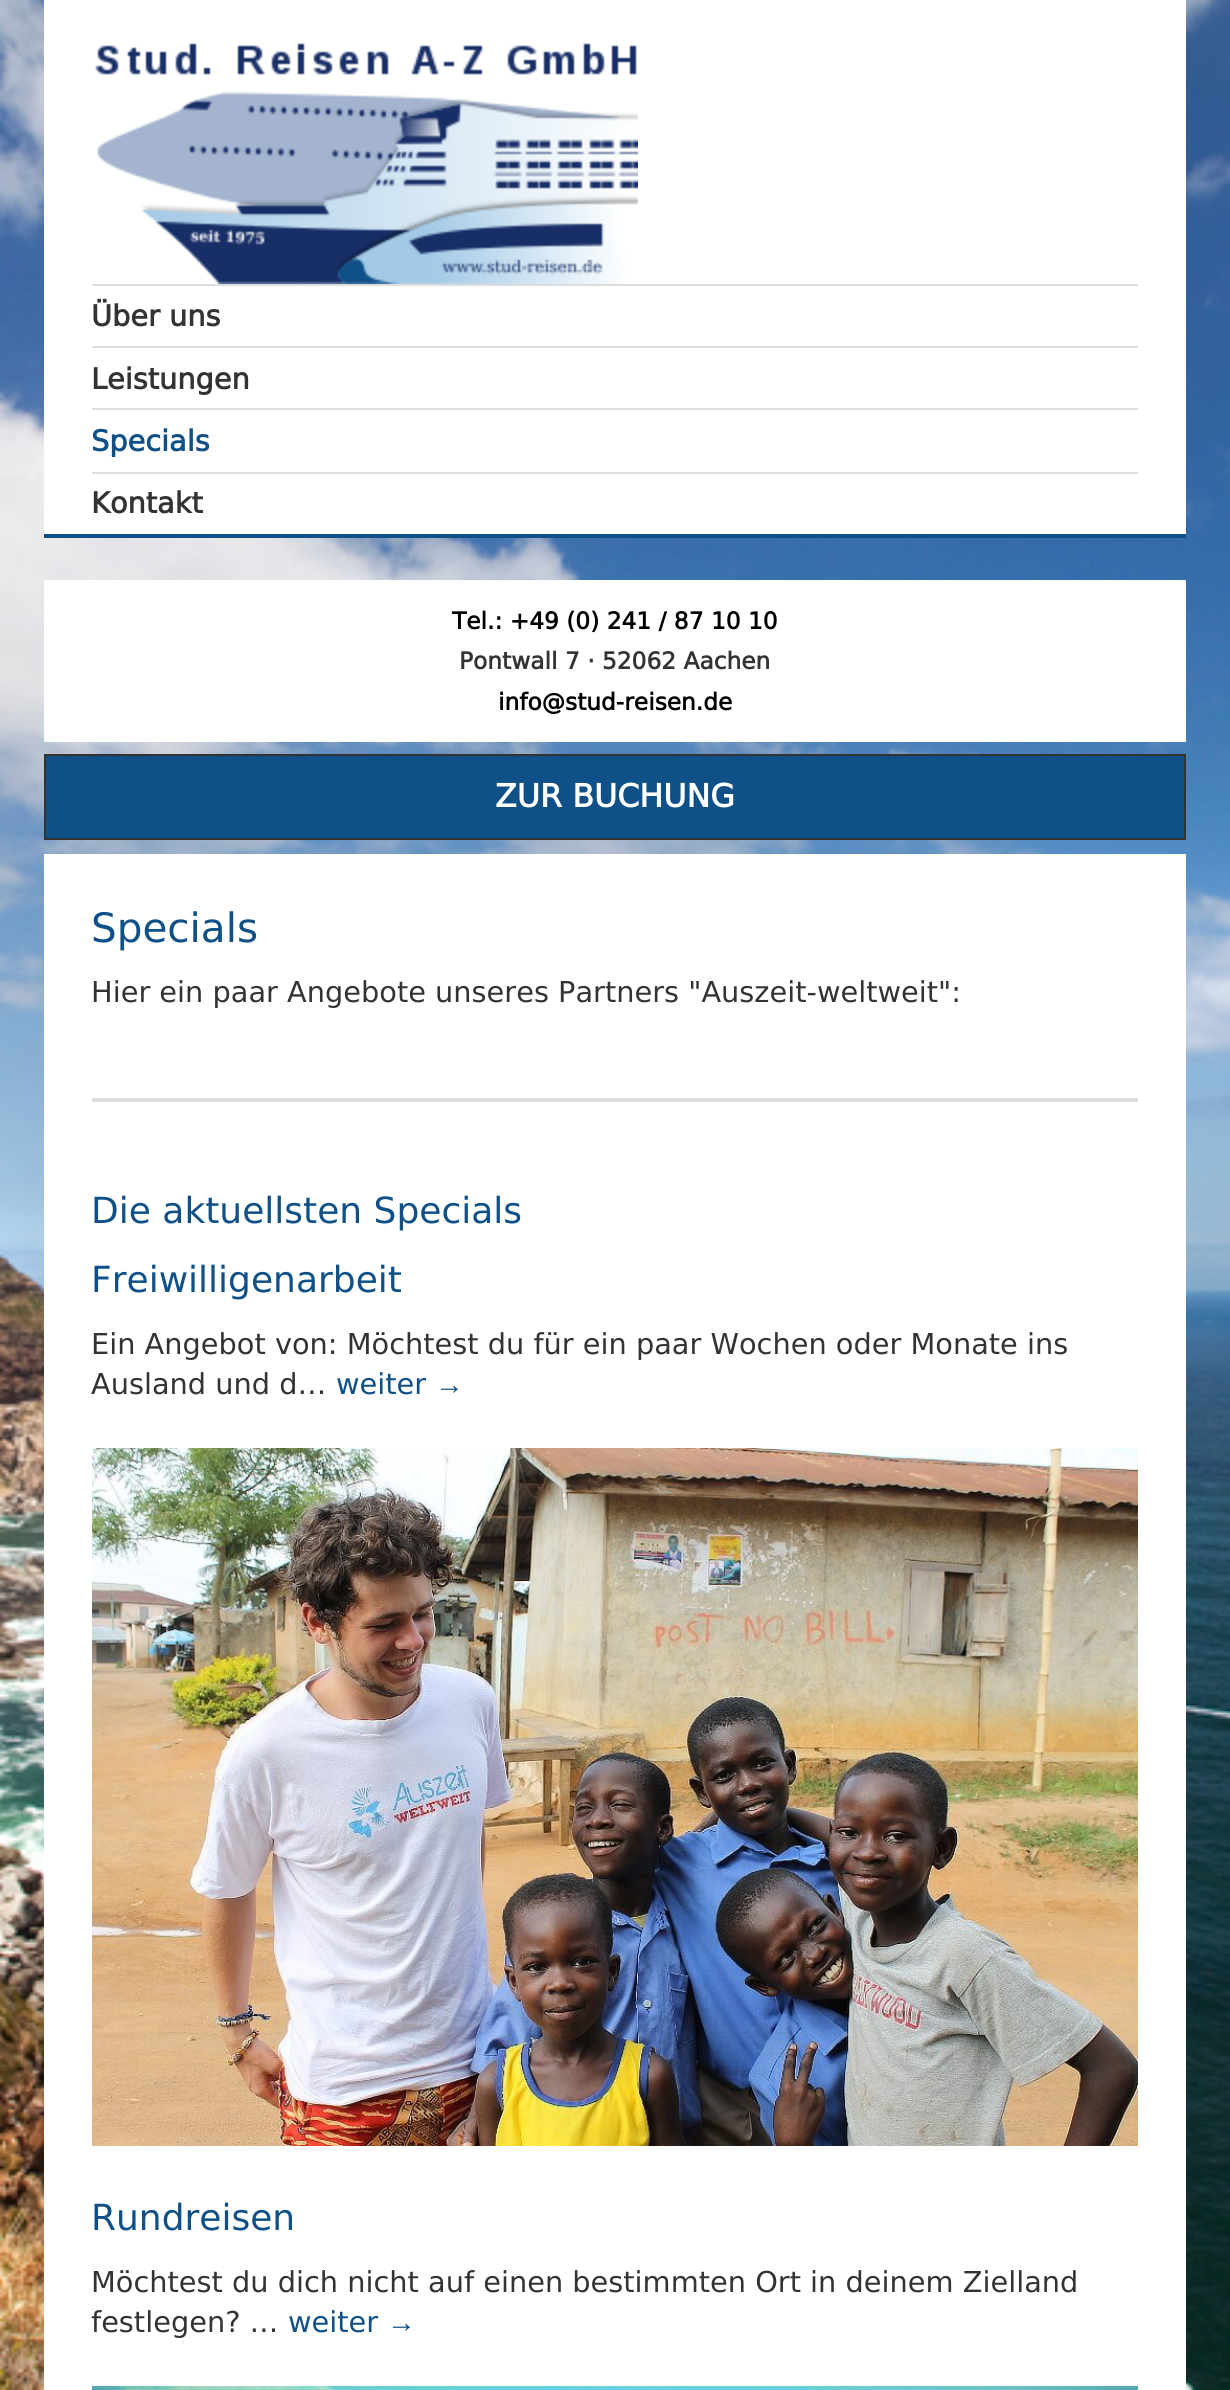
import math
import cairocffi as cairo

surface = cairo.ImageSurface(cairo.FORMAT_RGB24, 1230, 2390)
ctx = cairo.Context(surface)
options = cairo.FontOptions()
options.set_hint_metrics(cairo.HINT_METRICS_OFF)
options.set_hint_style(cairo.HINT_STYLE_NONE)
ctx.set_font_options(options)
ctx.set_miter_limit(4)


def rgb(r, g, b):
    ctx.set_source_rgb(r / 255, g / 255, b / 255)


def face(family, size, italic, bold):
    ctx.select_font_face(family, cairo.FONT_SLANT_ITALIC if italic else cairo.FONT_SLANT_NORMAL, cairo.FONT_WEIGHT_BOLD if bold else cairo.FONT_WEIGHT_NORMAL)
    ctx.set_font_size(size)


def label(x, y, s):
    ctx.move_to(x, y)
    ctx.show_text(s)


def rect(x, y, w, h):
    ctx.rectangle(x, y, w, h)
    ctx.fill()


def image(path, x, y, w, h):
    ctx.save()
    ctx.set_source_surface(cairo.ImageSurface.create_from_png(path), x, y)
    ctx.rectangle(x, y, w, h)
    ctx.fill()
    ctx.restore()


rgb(255, 255, 255)
ctx.paint()
image('image0.png', 0, 0, 1230, 2390)
rgb(255, 255, 255)
rect(44, 0, 1142, 534)
rgb(14, 80, 135)
rect(44, 534, 1142, 4)
image('image1.png', 95, 43, 543, 241)
rgb(221, 221, 221)
rect(92, 284, 1046, 2)
face('DejaVu Sans', 28.8, 0, 1)
rgb(51, 51, 51)
label(91, 326, 'Über uns')
rgb(221, 221, 221)
rect(92, 346, 1046, 2)
rgb(51, 51, 51)
label(91, 389, 'Leistungen')
rgb(221, 221, 221)
rect(92, 408, 1046, 2)
rgb(14, 80, 135)
label(91, 451, 'Specials')
rgb(221, 221, 221)
rect(92, 472, 1046, 2)
rgb(51, 51, 51)
label(91, 513, 'Kontakt')
rgb(255, 255, 255)
rect(44, 580, 1142, 162)
face('DejaVu Sans', 23.3, 0, 1)
rgb(0, 0, 0)
label(452, 629, 'Tel.: +49 (0) 241 / 87 10 10')
rgb(51, 51, 51)
label(459, 669, 'Pontwall 7 · 52062 Aachen')
rgb(0, 0, 0)
label(498, 710, 'info@stud-reisen.de')
rgb(14, 80, 135)
ctx.rectangle(45, 755, 1140, 84)
ctx.fill_preserve()
rgb(51, 51, 51)
ctx.stroke()
face('DejaVu Sans', 31.75, 0, 1)
rgb(255, 255, 255)
label(495, 807, 'ZUR BUCHUNG')
rect(44, 854, 1142, 1536)
face('DejaVu Sans', 40.5, 0, 0)
rgb(14, 80, 135)
label(91, 942, 'Specials')
face('DejaVu Sans', 28.8, 0, 0)
rgb(51, 51, 51)
label(91, 1002, 'Hier ein paar Angebote unseres Partners "Auszeit-weltweit":')
rgb(221, 221, 221)
rect(92, 1098, 1046, 4)
face('DejaVu Sans', 36, 0, 0)
rgb(14, 80, 135)
label(91, 1223, 'Die aktuellsten Specials')
label(91, 1292, 'Freiwilligenarbeit')
face('DejaVu Sans', 28.8, 0, 0)
rgb(51, 51, 51)
label(91, 1354, 'Ein Angebot von: Möchtest du für ein paar Wochen oder Monate ins')
label(91, 1394, 'Ausland und d…')
rgb(14, 80, 135)
label(336, 1394, 'weiter')
face('Liberation Sans', 28.8, 0, 0)
label(435, 1394, '→')
image('image2.png', 92, 1448, 1046, 698)
face('DejaVu Sans', 36, 0, 0)
label(91, 2230, 'Rundreisen')
face('DejaVu Sans', 28.8, 0, 0)
rgb(51, 51, 51)
label(91, 2292, 'Möchtest du dich nicht auf einen bestimmten Ort in deinem Zielland')
label(91, 2332, 'festlegen? …')
rgb(14, 80, 135)
label(288, 2332, 'weiter')
face('Liberation Sans', 28.8, 0, 0)
label(387, 2332, '→')
image('image3.png', 92, 2386, 1046, 4)
surface.write_to_png('render.png')
